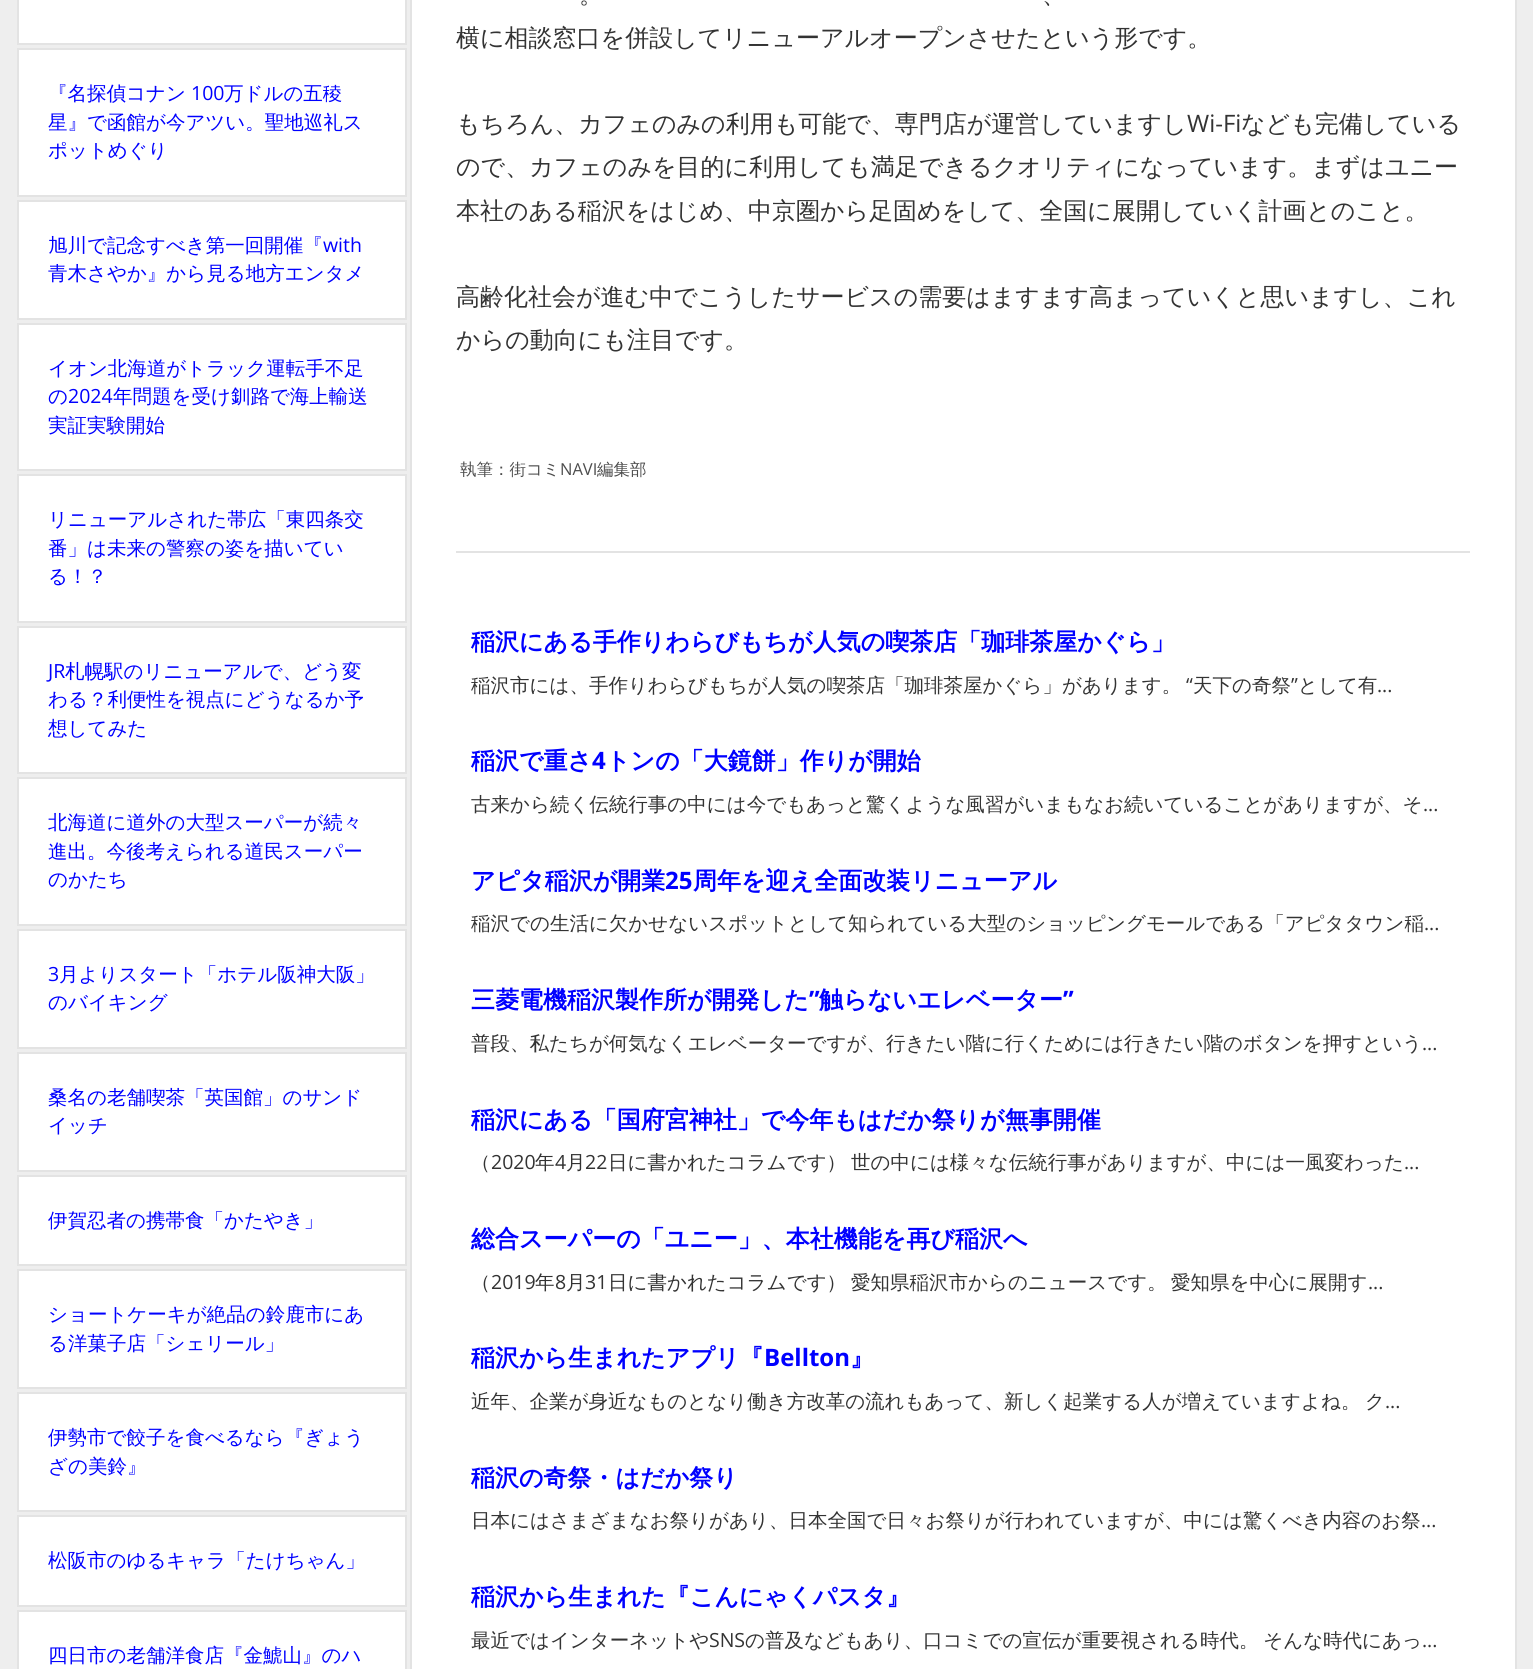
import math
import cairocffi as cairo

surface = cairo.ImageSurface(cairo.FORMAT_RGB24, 1533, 1669)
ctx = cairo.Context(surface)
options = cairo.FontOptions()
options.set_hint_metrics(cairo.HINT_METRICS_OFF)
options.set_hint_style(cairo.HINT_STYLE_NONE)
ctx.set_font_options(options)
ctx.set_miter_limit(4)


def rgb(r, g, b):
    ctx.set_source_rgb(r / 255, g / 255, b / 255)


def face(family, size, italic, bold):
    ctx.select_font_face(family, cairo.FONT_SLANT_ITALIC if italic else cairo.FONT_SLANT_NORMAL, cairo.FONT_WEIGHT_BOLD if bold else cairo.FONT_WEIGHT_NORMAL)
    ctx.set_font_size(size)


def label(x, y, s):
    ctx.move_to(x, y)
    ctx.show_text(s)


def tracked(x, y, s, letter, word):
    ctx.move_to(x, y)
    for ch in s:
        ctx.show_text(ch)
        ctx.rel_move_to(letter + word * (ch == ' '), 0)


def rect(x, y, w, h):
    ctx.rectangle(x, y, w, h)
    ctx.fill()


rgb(238, 238, 238)
ctx.paint()
rgb(255, 255, 255)
ctx.rectangle(18, -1, 388, 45)
ctx.fill_preserve()
rgb(227, 227, 227)
ctx.stroke()
rgb(255, 255, 255)
ctx.rectangle(18, 49, 388, 147)
ctx.fill_preserve()
rgb(227, 227, 227)
ctx.stroke()
face('WenQuanYi Zen Hei Medium', 19.5, 0, 0)
rgb(0, 0, 255)
label(48, 100, '『名探偵コナン')
face('Open Sans', 19.5, 0, 0)
label(191, 100, '100')
face('WenQuanYi Zen Hei Medium', 19.5, 0, 0)
label(224, 100, '万ドルの五稜')
label(48, 129, '星』で函館が今アツい。聖地巡礼ス')
label(48, 157, 'ポットめぐり')
rgb(255, 255, 255)
ctx.rectangle(18, 201, 388, 118)
ctx.fill_preserve()
rgb(227, 227, 227)
ctx.stroke()
rgb(0, 0, 255)
label(48, 252, '旭川で記念すべき第一回開催『')
face('Open Sans', 19.5, 0, 0)
label(323, 252, 'with')
face('WenQuanYi Zen Hei Medium', 19.5, 0, 0)
label(48, 280, '青木さやか』から見る地方エンタメ')
rgb(255, 255, 255)
ctx.rectangle(18, 324, 388, 146)
ctx.fill_preserve()
rgb(227, 227, 227)
ctx.stroke()
rgb(0, 0, 255)
label(48, 375, 'イオン北海道がトラック運転手不足')
label(48, 403, 'の')
face('Open Sans', 19.5, 0, 0)
label(68, 403, '2024')
face('WenQuanYi Zen Hei Medium', 19.5, 0, 0)
label(113, 403, '年問題を受け釧路で海上輸送')
label(48, 432, '実証実験開始')
rgb(255, 255, 255)
ctx.rectangle(18, 475, 388, 147)
ctx.fill_preserve()
rgb(227, 227, 227)
ctx.stroke()
rgb(0, 0, 255)
label(48, 526, 'リニューアルされた帯広「東四条交')
label(48, 555, '番」は未来の警察の姿を描いてい')
label(48, 583, 'る！？')
rgb(255, 255, 255)
ctx.rectangle(18, 627, 388, 146)
ctx.fill_preserve()
rgb(227, 227, 227)
ctx.stroke()
face('Open Sans', 19.5, 0, 0)
rgb(0, 0, 255)
label(48, 678, 'JR')
face('WenQuanYi Zen Hei Medium', 19.5, 0, 0)
label(65, 678, '札幌駅のリニューアルで、どう変')
label(48, 706, 'わる？利便性を視点にどうなるか予')
label(48, 735, '想してみた')
rgb(255, 255, 255)
ctx.rectangle(18, 778, 388, 147)
ctx.fill_preserve()
rgb(227, 227, 227)
ctx.stroke()
rgb(0, 0, 255)
label(48, 829, '北海道に道外の大型スーパーが続々')
label(48, 858, '進出。今後考えられる道民スーパー')
label(48, 886, 'のかたち')
rgb(255, 255, 255)
ctx.rectangle(18, 930, 388, 118)
ctx.fill_preserve()
rgb(227, 227, 227)
ctx.stroke()
face('Open Sans', 19.5, 0, 0)
rgb(0, 0, 255)
label(48, 981, '3')
face('WenQuanYi Zen Hei Medium', 19.5, 0, 0)
label(59, 981, '月よりスタート「ホテル阪神大阪」')
label(48, 1009, 'のバイキング')
rgb(255, 255, 255)
ctx.rectangle(18, 1053, 388, 118)
ctx.fill_preserve()
rgb(227, 227, 227)
ctx.stroke()
rgb(0, 0, 255)
label(48, 1104, '桑名の老舗喫茶「英国館」のサンド')
label(48, 1132, 'イッチ')
rgb(255, 255, 255)
ctx.rectangle(18, 1176, 388, 89)
ctx.fill_preserve()
rgb(227, 227, 227)
ctx.stroke()
rgb(0, 0, 255)
label(48, 1227, '伊賀忍者の携帯食「かたやき」')
rgb(255, 255, 255)
ctx.rectangle(18, 1270, 388, 118)
ctx.fill_preserve()
rgb(227, 227, 227)
ctx.stroke()
rgb(0, 0, 255)
label(48, 1321, 'ショートケーキが絶品の鈴鹿市にあ')
label(48, 1350, 'る洋菓子店「シェリール」')
rgb(255, 255, 255)
ctx.rectangle(18, 1393, 388, 118)
ctx.fill_preserve()
rgb(227, 227, 227)
ctx.stroke()
rgb(0, 0, 255)
label(48, 1444, '伊勢市で餃子を食べるなら『ぎょう')
label(48, 1473, 'ざの美鈴』')
rgb(255, 255, 255)
ctx.rectangle(18, 1516, 388, 90)
ctx.fill_preserve()
rgb(227, 227, 227)
ctx.stroke()
rgb(0, 0, 255)
label(48, 1567, '松阪市のゆるキャラ「たけちゃん」')
rgb(255, 255, 255)
ctx.rectangle(18, 1611, 388, 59)
ctx.fill_preserve()
rgb(227, 227, 227)
ctx.stroke()
rgb(0, 0, 255)
label(48, 1662, '四日市の老舗洋食店『金鯱山』のハ')
rgb(255, 255, 255)
ctx.rectangle(411, -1, 1105, 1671)
ctx.fill_preserve()
rgb(227, 227, 227)
ctx.stroke()
face('WenQuanYi Zen Hei Medium', 24, 0, 0)
rgb(51, 51, 51)
label(579, 3, '。')
label(1042, 3, '、')
label(456, 46, '横に相談窓口を併設してリニューアルオープンさせたという形です。')
label(456, 132, 'もちろん、カフェのみの利用も可能で、専門店が運営していますし')
face('Open Sans', 24, 0, 0)
label(1187, 132, 'Wi-Fi')
face('WenQuanYi Zen Hei Medium', 24, 0, 0)
label(1241, 132, 'なども完備している')
label(456, 175, 'ので、カフェのみを目的に利用しても満足できるクオリティになっています。まずはユニー')
label(456, 219, '本社のある稲沢をはじめ、中京圏から足固めをして、全国に展開していく計画とのこと。')
label(456, 305, '高齢化社会が進む中でこうしたサービスの需要はますます高まっていくと思いますし、これ')
label(456, 348, 'からの動向にも注目です。')
face('WenQuanYi Zen Hei Medium', 16.5, 0, 0)
rgb(77, 77, 77)
label(460, 475, '執筆：街コミ')
face('Open Sans', 16.5, 0, 0)
label(560, 475, 'NAVI')
face('WenQuanYi Zen Hei Medium', 16.5, 0, 0)
label(597, 475, '編集部')
rgb(227, 227, 227)
rect(456, 551, 1014, 2)
face('WenQuanYi Zen Hei', 24, 0, 1)
rgb(0, 0, 255)
label(471, 650, '稲沢にある手作りわらびもちが人気の喫茶店「珈琲茶屋かぐら」')
face('WenQuanYi Zen Hei Medium', 19.5, 0, 0)
rgb(51, 51, 51)
label(471, 692, '稲沢市には、手作りわらびもちが人気の喫茶店「珈琲茶屋かぐら」があります。')
face('Open Sans', 19.5, 0, 0)
label(1186, 692, '“')
face('WenQuanYi Zen Hei Medium', 19.5, 0, 0)
label(1193, 692, '天下の奇祭')
face('Open Sans', 19.5, 0, 0)
label(1291, 692, '”')
face('WenQuanYi Zen Hei Medium', 19.5, 0, 0)
label(1298, 692, 'として有')
face('Open Sans', 19.5, 0, 0)
label(1377, 692, '...')
face('WenQuanYi Zen Hei', 24, 0, 1)
rgb(0, 0, 255)
label(471, 769, '稲沢で重さ')
face('Open Sans', 24, 0, 1)
label(592, 769, '4')
face('WenQuanYi Zen Hei', 24, 0, 1)
label(606, 769, 'トンの「大鏡餅」作りが開始')
face('WenQuanYi Zen Hei Medium', 19.5, 0, 0)
rgb(51, 51, 51)
label(471, 811, '古来から続く伝統行事の中には今でもあっと驚くような風習がいまもなお続いていることがありますが、そ')
face('Open Sans', 19.5, 0, 0)
label(1423, 811, '...')
face('WenQuanYi Zen Hei', 24, 0, 1)
rgb(0, 0, 255)
label(471, 889, 'アピタ稲沢が開業')
face('Open Sans', 24, 0, 1)
label(665, 889, '25')
face('WenQuanYi Zen Hei', 24, 0, 1)
label(693, 889, '周年を迎え全面改装リニューアル')
face('WenQuanYi Zen Hei Medium', 19.5, 0, 0)
rgb(51, 51, 51)
label(471, 930, '稲沢での生活に欠かせないスポットとして知られている大型のショッピングモールである「アピタタウン稲')
face('Open Sans', 19.5, 0, 0)
label(1424, 930, '...')
face('WenQuanYi Zen Hei', 24, 0, 1)
rgb(0, 0, 255)
label(471, 1008, '三菱電機稲沢製作所が開発した')
face('Open Sans', 24, 0, 1)
label(809, 1008, '”')
face('WenQuanYi Zen Hei', 24, 0, 1)
label(819, 1008, '触らないエレベーター')
face('Open Sans', 24, 0, 1)
label(1063, 1008, '”')
face('WenQuanYi Zen Hei Medium', 19.5, 0, 0)
rgb(51, 51, 51)
label(471, 1050, '普段、私たちが何気なくエレベーターですが、行きたい階に行くためには行きたい階のボタンを押すという')
face('Open Sans', 19.5, 0, 0)
label(1422, 1050, '...')
face('WenQuanYi Zen Hei', 24, 0, 1)
rgb(0, 0, 255)
label(471, 1128, '稲沢にある「国府宮神社」で今年もはだか祭りが無事開催')
face('WenQuanYi Zen Hei Medium', 19.5, 0, 0)
rgb(51, 51, 51)
label(471, 1169, '（')
face('Open Sans', 19.5, 0, 0)
label(491, 1169, '2020')
face('WenQuanYi Zen Hei Medium', 19.5, 0, 0)
label(535, 1169, '年')
face('Open Sans', 19.5, 0, 0)
label(555, 1169, '4')
face('WenQuanYi Zen Hei Medium', 19.5, 0, 0)
label(566, 1169, '月')
face('Open Sans', 19.5, 0, 0)
label(585, 1169, '22')
face('WenQuanYi Zen Hei Medium', 19.5, 0, 0)
label(608, 1169, '日に書かれたコラムです）')
label(851, 1169, '世の中には様々な伝統行事がありますが、中には一風変わった')
face('Open Sans', 19.5, 0, 0)
label(1404, 1169, '...')
face('WenQuanYi Zen Hei', 24, 0, 1)
rgb(0, 0, 255)
label(471, 1247, '総合スーパーの「ユニー」、本社機能を再び稲沢へ')
face('WenQuanYi Zen Hei Medium', 19.5, 0, 0)
rgb(51, 51, 51)
label(471, 1289, '（')
face('Open Sans', 19.5, 0, 0)
label(491, 1289, '2019')
face('WenQuanYi Zen Hei Medium', 19.5, 0, 0)
label(535, 1289, '年')
face('Open Sans', 19.5, 0, 0)
label(555, 1289, '8')
face('WenQuanYi Zen Hei Medium', 19.5, 0, 0)
label(566, 1289, '月')
face('Open Sans', 19.5, 0, 0)
label(585, 1289, '31')
face('WenQuanYi Zen Hei Medium', 19.5, 0, 0)
label(608, 1289, '日に書かれたコラムです）')
label(851, 1289, '愛知県稲沢市からのニュースです。')
label(1171, 1289, '愛知県を中心に展開す')
face('Open Sans', 19.5, 0, 0)
label(1368, 1289, '...')
face('WenQuanYi Zen Hei', 24, 0, 1)
rgb(0, 0, 255)
label(471, 1366, '稲沢から生まれたアプリ『')
face('Open Sans', 24, 0, 1)
label(764, 1366, 'Bellton')
face('WenQuanYi Zen Hei', 24, 0, 1)
label(850, 1366, '』')
face('WenQuanYi Zen Hei Medium', 19.5, 0, 0)
rgb(51, 51, 51)
label(471, 1408, '近年、企業が身近なものとなり働き方改革の流れもあって、新しく起業する人が増えていますよね。')
label(1365, 1408, 'ク')
face('Open Sans', 19.5, 0, 0)
label(1385, 1408, '...')
face('WenQuanYi Zen Hei', 24, 0, 1)
rgb(0, 0, 255)
label(471, 1486, '稲沢の奇祭・はだか祭り')
face('WenQuanYi Zen Hei Medium', 19.5, 0, 0)
rgb(51, 51, 51)
label(471, 1527, '日本にはさまざまなお祭りがあり、日本全国で日々お祭りが行われていますが、中には驚くべき内容のお祭')
face('Open Sans', 19.5, 0, 0)
label(1421, 1527, '...')
face('WenQuanYi Zen Hei', 24, 0, 1)
rgb(0, 0, 255)
label(471, 1605, '稲沢から生まれた『こんにゃくパスタ』')
face('WenQuanYi Zen Hei Medium', 19.5, 0, 0)
rgb(51, 51, 51)
label(471, 1647, '最近ではインターネットや')
face('Open Sans', 19.5, 0, 0)
label(709, 1647, 'SNS')
face('WenQuanYi Zen Hei Medium', 19.5, 0, 0)
tracked(745, 1647, 'の普及などもあり、口コミでの宣伝が重要視される時代。 そんな時代にあっ', 0, -1)
face('Open Sans', 19.5, 0, 0)
label(1422, 1647, '...')
surface.write_to_png('render.png')
